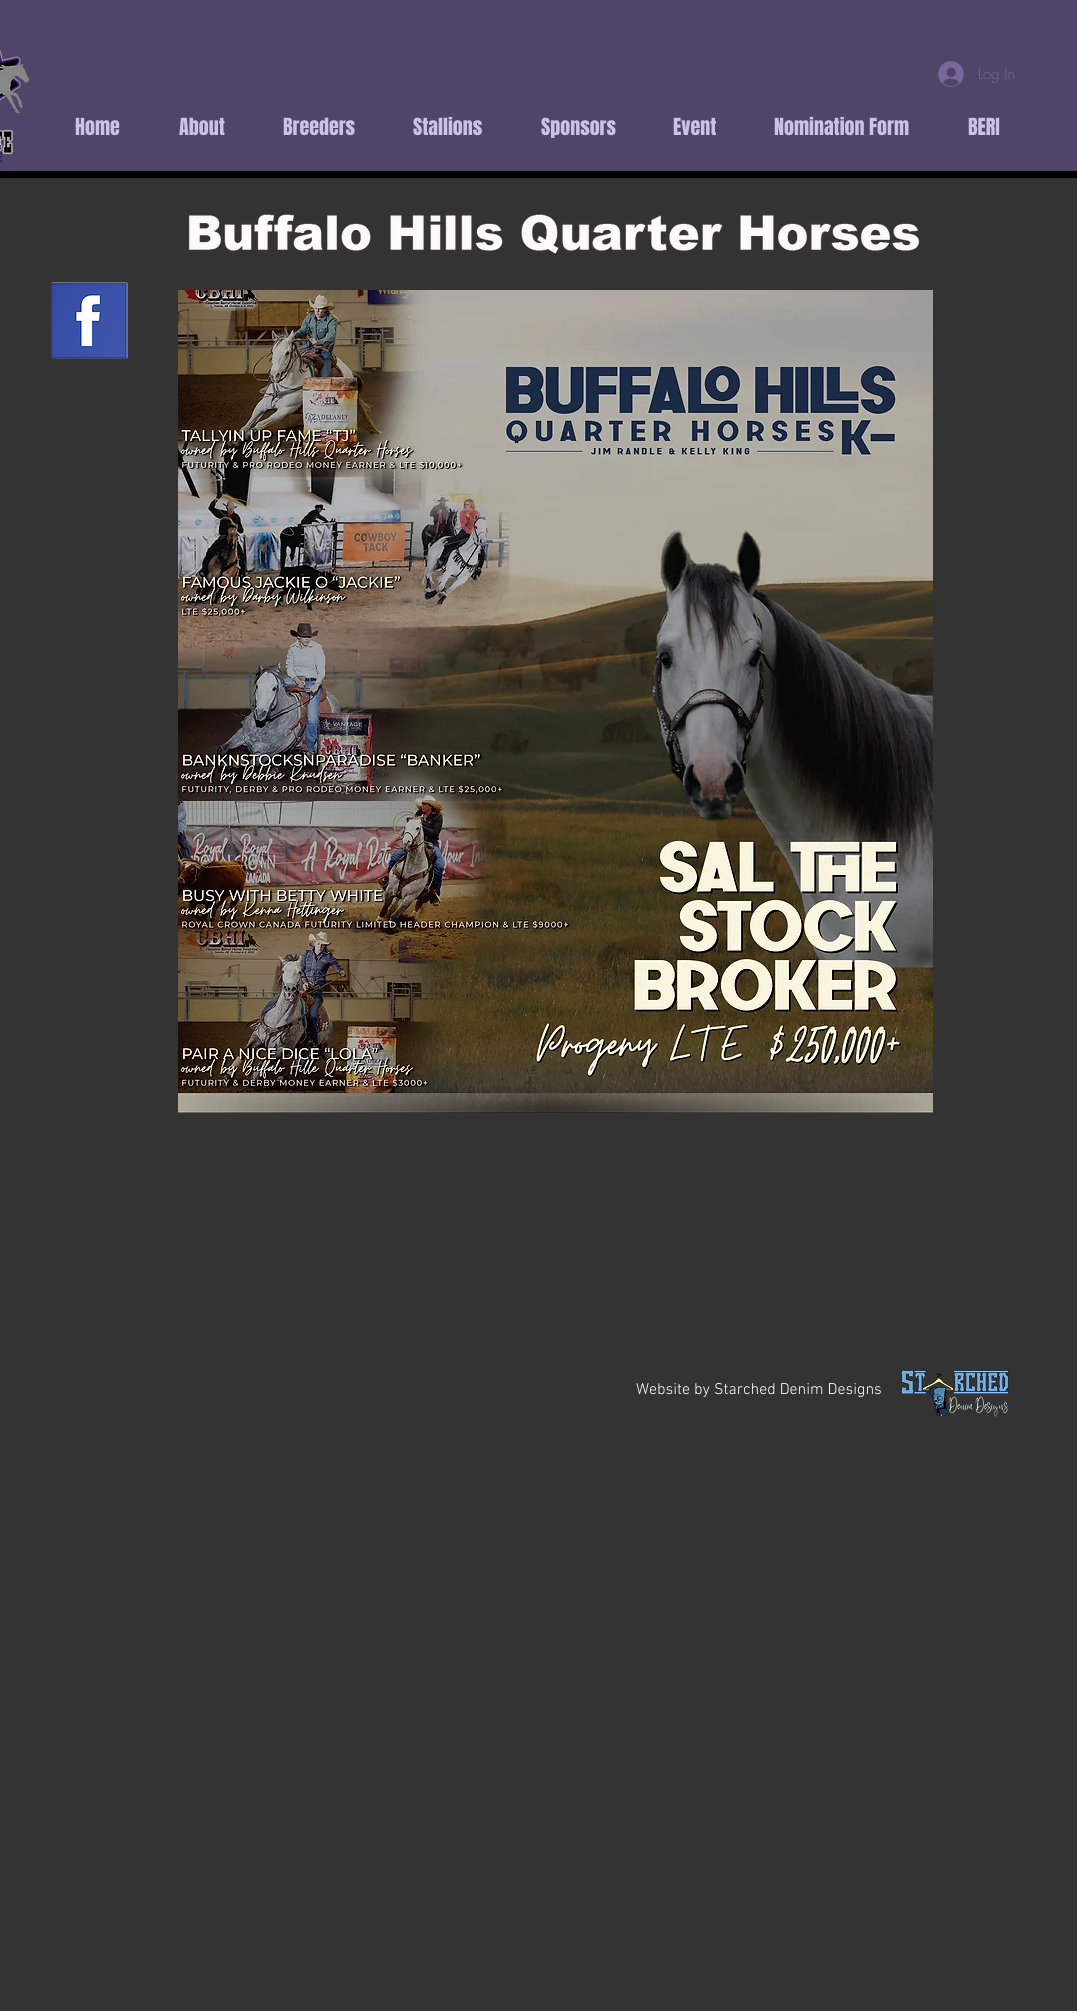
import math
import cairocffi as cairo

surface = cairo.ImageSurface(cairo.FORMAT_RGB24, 1077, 2011)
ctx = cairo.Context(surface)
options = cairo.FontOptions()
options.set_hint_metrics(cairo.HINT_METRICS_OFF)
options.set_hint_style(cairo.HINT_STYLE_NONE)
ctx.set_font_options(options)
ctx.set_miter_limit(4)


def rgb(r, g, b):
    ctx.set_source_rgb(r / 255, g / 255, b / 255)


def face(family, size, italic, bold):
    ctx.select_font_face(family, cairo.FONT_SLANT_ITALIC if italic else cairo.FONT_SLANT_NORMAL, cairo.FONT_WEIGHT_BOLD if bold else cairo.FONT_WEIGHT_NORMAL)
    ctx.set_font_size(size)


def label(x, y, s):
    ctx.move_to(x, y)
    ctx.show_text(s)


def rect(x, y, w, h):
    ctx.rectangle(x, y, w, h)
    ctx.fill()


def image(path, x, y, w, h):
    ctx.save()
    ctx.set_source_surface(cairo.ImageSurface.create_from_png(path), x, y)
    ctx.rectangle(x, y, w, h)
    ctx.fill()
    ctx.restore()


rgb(51, 51, 51)
ctx.paint()
rgb(80, 69, 104)
rect(0, 0, 1077, 171)
rgb(0, 0, 0)
rect(0, 171, 1077, 7)
image('image0.png', 0, 50, 30, 113)
image('image1.png', 938, 61, 26, 26)
face('futura Light', 15, 0, 0)
rgb(120, 103, 155)
label(978, 79, 'Log In')
face('Anton', 20, 0, 0)
rgb(205, 193, 231)
label(75, 135, 'Home')
label(179, 135, 'About')
label(283, 135, 'Breeders')
label(413, 135, 'Stallions')
label(541, 135, 'Sponsors')
label(673, 135, 'Event')
label(774, 135, 'Nomination Form')
label(968, 135, 'BERI')
image('image2.png', 188, 213, 732, 41)
image('image3.png', 51, 282, 77, 77)
image('image4.png', 178, 290, 755, 823)
face('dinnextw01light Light', 16, 0, 0)
rgb(255, 255, 255)
label(636, 1394, 'Website by Starched Denim Designs')
image('image5.png', 900, 1370, 109, 47)
surface.write_to_png('render.png')
